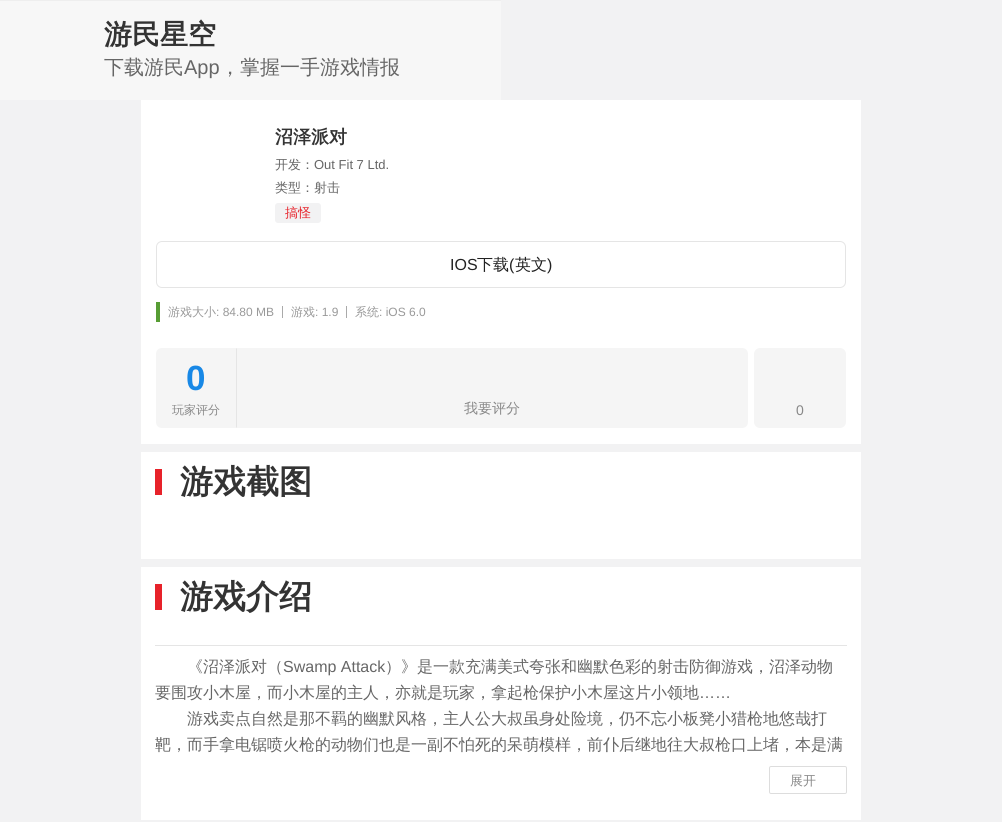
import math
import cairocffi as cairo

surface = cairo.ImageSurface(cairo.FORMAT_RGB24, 1002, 822)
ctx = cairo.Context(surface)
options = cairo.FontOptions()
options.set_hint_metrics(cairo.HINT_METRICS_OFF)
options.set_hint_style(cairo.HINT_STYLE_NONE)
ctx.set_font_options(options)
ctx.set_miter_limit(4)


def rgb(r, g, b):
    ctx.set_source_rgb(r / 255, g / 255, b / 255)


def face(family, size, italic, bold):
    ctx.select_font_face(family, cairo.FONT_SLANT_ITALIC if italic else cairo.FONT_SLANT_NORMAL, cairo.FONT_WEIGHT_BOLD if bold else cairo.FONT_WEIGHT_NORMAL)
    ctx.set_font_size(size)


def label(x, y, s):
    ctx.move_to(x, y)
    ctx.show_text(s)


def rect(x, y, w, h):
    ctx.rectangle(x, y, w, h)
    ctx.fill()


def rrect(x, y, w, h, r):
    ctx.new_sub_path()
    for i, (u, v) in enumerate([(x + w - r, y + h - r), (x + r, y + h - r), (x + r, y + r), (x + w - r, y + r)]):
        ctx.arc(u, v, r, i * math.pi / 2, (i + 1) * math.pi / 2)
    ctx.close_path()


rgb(242, 242, 243)
ctx.paint()
rgb(247, 247, 247)
rect(0, 1, 501, 99)
rgb(238, 238, 238)
rect(0, 0, 501, 1)
face('WenQuanYi Zen Hei', 28, 0, 1)
rgb(51, 51, 51)
label(104, 44, '游民星空')
face('WenQuanYi Zen Hei Medium', 20, 0, 0)
rgb(102, 102, 102)
label(104, 74, '下载游民')
face('Liberation Sans', 20, 0, 0)
label(184, 74, 'App')
face('WenQuanYi Zen Hei Medium', 20, 0, 0)
label(220, 74, '，掌握一手游戏情报')
rgb(255, 255, 255)
rect(141, 100, 720, 344)
face('WenQuanYi Zen Hei', 18, 0, 1)
rgb(51, 51, 51)
label(275, 143, '沼泽派对')
face('WenQuanYi Zen Hei Medium', 13, 0, 0)
rgb(102, 102, 102)
label(275, 169, '开发：')
face('Liberation Sans', 13, 0, 0)
label(314, 169, 'Out Fit 7 Ltd.')
face('WenQuanYi Zen Hei Medium', 13, 0, 0)
label(275, 192, '类型：射击')
rgb(242, 242, 243)
rrect(275, 203, 46, 20, 3)
ctx.fill()
rgb(231, 34, 42)
label(285, 217, '搞怪')
rrect(156.5, 241.5, 689, 46, 5.5)
rgb(229, 229, 229)
ctx.set_line_width(1)
ctx.stroke()
face('Liberation Sans', 16, 0, 0)
rgb(34, 34, 34)
label(450, 270, 'IOS')
face('WenQuanYi Zen Hei Medium', 16, 0, 0)
label(477, 270, '下载')
face('Liberation Sans', 16, 0, 0)
label(509, 270, '(')
face('WenQuanYi Zen Hei Medium', 16, 0, 0)
label(515, 270, '英文')
face('Liberation Sans', 16, 0, 0)
label(547, 270, ')')
rgb(87, 157, 52)
rect(156, 302, 4, 20)
face('WenQuanYi Zen Hei Medium', 12, 0, 0)
rgb(153, 153, 153)
label(168, 316, '游戏大小')
face('Liberation Sans', 12, 0, 0)
label(216, 316, ': 84.80 MB')
rgb(170, 170, 170)
rect(282, 306, 1, 12)
face('WenQuanYi Zen Hei Medium', 12, 0, 0)
rgb(153, 153, 153)
label(291, 316, '游戏')
face('Liberation Sans', 12, 0, 0)
label(315, 316, ': 1.9')
rgb(170, 170, 170)
rect(346, 306, 1, 12)
face('WenQuanYi Zen Hei Medium', 12, 0, 0)
rgb(153, 153, 153)
label(355, 316, '系统')
face('Liberation Sans', 12, 0, 0)
label(379, 316, ': iOS 6.0')
rgb(245, 245, 245)
ctx.new_path()
ctx.move_to(162, 348)
ctx.line_to(236, 348)
ctx.line_to(236, 428)
ctx.line_to(162, 428)
ctx.curve_to(158.5, 428, 156, 425.5, 156, 422)
ctx.line_to(156, 354)
ctx.curve_to(156, 350.5, 158.5, 348, 162, 348)
ctx.close_path()
ctx.fill()
face('Liberation Sans', 35, 0, 1)
rgb(24, 136, 230)
label(186, 390, '0')
face('WenQuanYi Zen Hei Medium', 12, 0, 0)
rgb(136, 136, 136)
label(172, 414, '玩家评分')
rgb(245, 245, 245)
ctx.new_path()
ctx.move_to(236, 348)
ctx.line_to(742, 348)
ctx.curve_to(745.5, 348, 748, 350.5, 748, 354)
ctx.line_to(748, 422)
ctx.curve_to(748, 425.5, 745.5, 428, 742, 428)
ctx.line_to(236, 428)
ctx.close_path()
ctx.fill()
rgb(229, 229, 229)
ctx.new_path()
ctx.move_to(236, 348)
ctx.line_to(236, 428)
ctx.line_to(237, 427)
ctx.line_to(237, 349)
ctx.close_path()
ctx.fill()
face('WenQuanYi Zen Hei Medium', 14, 0, 0)
rgb(136, 136, 136)
label(464, 413, '我要评分')
rgb(245, 245, 245)
rrect(754, 348, 92, 80, 6)
ctx.fill()
face('Liberation Sans', 14, 0, 0)
rgb(136, 136, 136)
label(796, 415, '0')
rgb(255, 255, 255)
rect(141, 452, 720, 107)
rgb(231, 34, 42)
rect(155, 469, 7, 26)
face('WenQuanYi Zen Hei', 33, 0, 1)
rgb(51, 51, 51)
label(180, 493, '游戏截图')
rgb(255, 255, 255)
rect(141, 567, 720, 253)
rgb(231, 34, 42)
rect(155, 584, 7, 26)
rgb(51, 51, 51)
label(180, 608, '游戏介绍')
rgb(229, 229, 229)
rect(155, 645, 692, 1)
face('WenQuanYi Zen Hei Medium', 16, 0, 0)
rgb(102, 102, 102)
label(187, 672, '《沼泽派对（')
face('Liberation Sans', 16, 0, 0)
label(283, 672, 'Swamp Attack')
face('WenQuanYi Zen Hei Medium', 16, 0, 0)
label(385, 672, '）》是一款充满美式夸张和幽默色彩的射击防御游戏，沼泽动物')
label(155, 698, '要围攻小木屋，而小木屋的主人，亦就是玩家，拿起枪保护小木屋这片小领地')
face('Liberation Sans', 16, 0, 0)
label(699, 698, '……')
face('WenQuanYi Zen Hei Medium', 16, 0, 0)
label(187, 724, '游戏卖点自然是那不羁的幽默风格，主人公大叔虽身处险境，仍不忘小板凳小猎枪地悠哉打')
label(155, 750, '靶，而手拿电锯喷火枪的动物们也是一副不怕死的呆萌模样，前仆后继地往大叔枪口上堵，本是满')
rrect(769.5, 766.5, 77, 27, 1.5)
rgb(221, 221, 221)
ctx.stroke()
face('WenQuanYi Zen Hei Medium', 13, 0, 0)
rgb(136, 136, 136)
label(790, 785, '展开')
surface.write_to_png('render.png')
